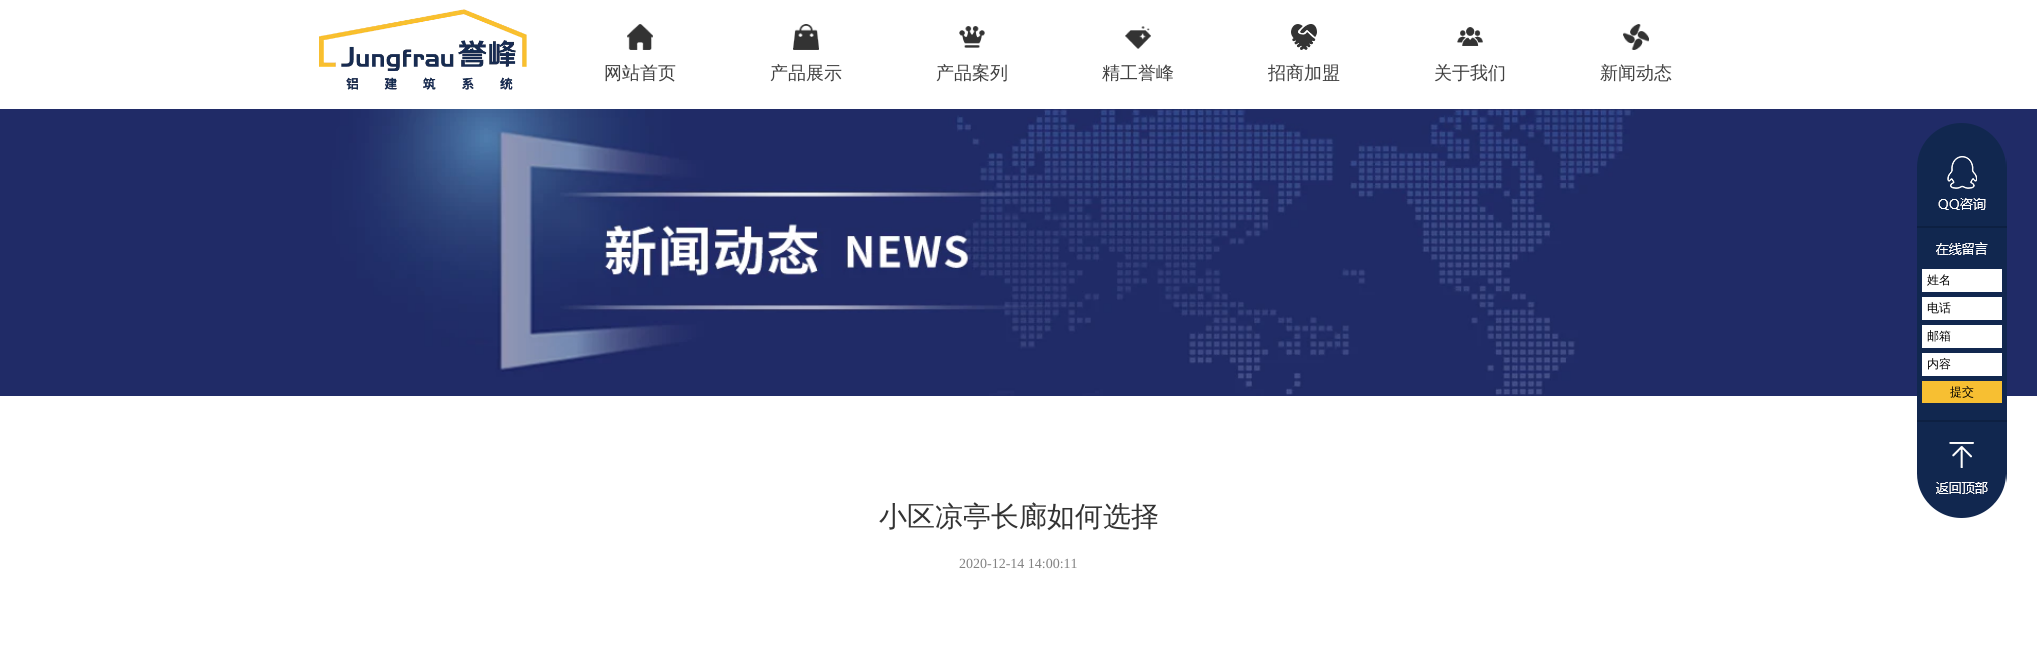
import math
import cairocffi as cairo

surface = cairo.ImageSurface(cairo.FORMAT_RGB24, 2037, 647)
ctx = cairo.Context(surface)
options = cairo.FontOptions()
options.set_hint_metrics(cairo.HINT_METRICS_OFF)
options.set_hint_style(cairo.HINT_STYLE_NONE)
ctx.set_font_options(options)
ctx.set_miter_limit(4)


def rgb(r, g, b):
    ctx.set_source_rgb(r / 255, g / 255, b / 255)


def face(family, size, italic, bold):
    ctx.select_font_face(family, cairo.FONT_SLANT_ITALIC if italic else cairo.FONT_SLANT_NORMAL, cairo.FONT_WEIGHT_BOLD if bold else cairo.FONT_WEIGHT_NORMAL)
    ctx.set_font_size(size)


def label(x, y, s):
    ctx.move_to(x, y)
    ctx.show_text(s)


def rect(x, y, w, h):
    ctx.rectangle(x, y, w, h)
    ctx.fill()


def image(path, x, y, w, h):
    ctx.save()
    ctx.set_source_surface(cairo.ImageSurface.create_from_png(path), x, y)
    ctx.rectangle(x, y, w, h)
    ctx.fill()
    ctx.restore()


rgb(255, 255, 255)
ctx.paint()
image('image0.png', 319, 9, 208, 81)
image('image1.png', 627, 24, 26, 26)
face('WenQuanYi Zen Hei Medium', 18, 0, 0)
rgb(64, 64, 64)
label(604, 79, '网站首页')
image('image2.png', 793, 24, 26, 26)
label(770, 79, '产品展示')
image('image3.png', 959, 26, 26, 22)
label(936, 79, '产品案列')
image('image4.png', 1125, 26, 26, 23)
label(1102, 79, '精工誉峰')
image('image5.png', 1291, 24, 26, 26)
label(1268, 79, '招商加盟')
image('image6.png', 1457, 27, 26, 19)
label(1434, 79, '关于我们')
image('image7.png', 1623, 24, 26, 26)
label(1600, 79, '新闻动态')
image('image9.png', 0, 109, 2037, 287)
image('image8.png', 1917, 123, 90, 395)
rgb(255, 255, 255)
rect(1922, 269, 80, 23)
face('WenQuanYi Zen Hei Medium', 12, 0, 0)
rgb(0, 0, 0)
label(1927, 284, '姓名')
rgb(255, 255, 255)
rect(1922, 297, 80, 23)
rgb(0, 0, 0)
label(1927, 312, '电话')
rgb(255, 255, 255)
rect(1922, 325, 80, 23)
rgb(0, 0, 0)
label(1927, 340, '邮箱')
rgb(255, 255, 255)
rect(1922, 353, 80, 23)
rgb(0, 0, 0)
label(1927, 368, '内容')
rgb(247, 191, 50)
rect(1922, 381, 80, 22)
rgb(0, 0, 0)
label(1950, 396, '提交')
face('WenQuanYi Zen Hei Medium', 28, 0, 0)
rgb(51, 51, 51)
label(879, 526, '小区凉亭长廊如何选择')
face('Liberation Serif', 14, 0, 0)
rgb(130, 130, 130)
label(959, 568, '2020-12-14 14:00:11')
surface.write_to_png('render.png')
